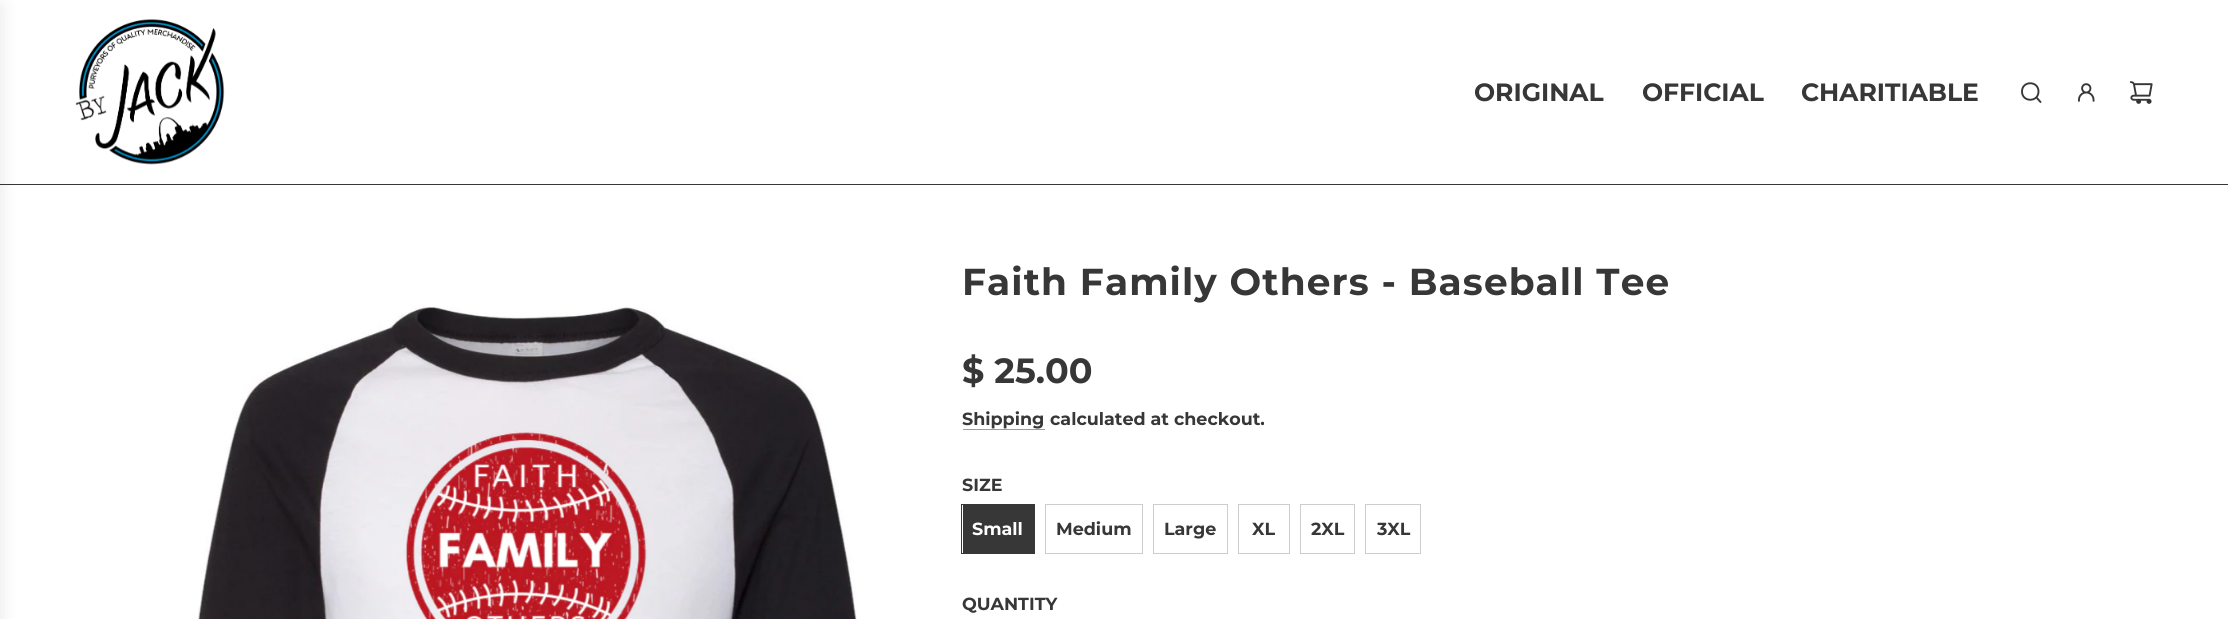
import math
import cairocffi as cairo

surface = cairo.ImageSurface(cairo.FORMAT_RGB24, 2228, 619)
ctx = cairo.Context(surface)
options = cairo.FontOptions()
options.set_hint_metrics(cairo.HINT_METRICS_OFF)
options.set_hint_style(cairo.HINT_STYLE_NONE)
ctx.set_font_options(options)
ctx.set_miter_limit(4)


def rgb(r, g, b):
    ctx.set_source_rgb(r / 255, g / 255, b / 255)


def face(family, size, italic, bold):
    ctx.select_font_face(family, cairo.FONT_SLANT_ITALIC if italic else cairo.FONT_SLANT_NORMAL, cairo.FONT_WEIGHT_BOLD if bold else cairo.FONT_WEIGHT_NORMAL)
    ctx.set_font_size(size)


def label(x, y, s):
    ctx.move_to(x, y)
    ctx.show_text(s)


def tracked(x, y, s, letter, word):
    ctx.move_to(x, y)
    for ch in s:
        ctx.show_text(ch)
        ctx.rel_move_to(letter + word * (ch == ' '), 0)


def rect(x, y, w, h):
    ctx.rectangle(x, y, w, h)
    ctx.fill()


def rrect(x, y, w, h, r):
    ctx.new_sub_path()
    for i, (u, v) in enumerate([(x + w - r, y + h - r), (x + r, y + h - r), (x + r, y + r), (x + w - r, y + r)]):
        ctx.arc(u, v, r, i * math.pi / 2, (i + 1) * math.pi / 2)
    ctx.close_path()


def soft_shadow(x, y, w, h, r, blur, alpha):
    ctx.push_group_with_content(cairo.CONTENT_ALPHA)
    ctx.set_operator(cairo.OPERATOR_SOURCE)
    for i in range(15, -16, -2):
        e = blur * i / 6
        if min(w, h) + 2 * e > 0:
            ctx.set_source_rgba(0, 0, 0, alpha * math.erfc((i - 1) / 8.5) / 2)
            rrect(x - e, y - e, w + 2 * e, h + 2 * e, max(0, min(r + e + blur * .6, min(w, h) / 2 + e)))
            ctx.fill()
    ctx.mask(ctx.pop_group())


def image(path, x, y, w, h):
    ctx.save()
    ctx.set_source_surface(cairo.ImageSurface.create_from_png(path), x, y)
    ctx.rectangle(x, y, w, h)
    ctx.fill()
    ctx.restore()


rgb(255, 255, 255)
ctx.paint()
rgb(55, 55, 55)
rect(0, 184, 2228, 1)
rgb(0, 0, 0)
soft_shadow(-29, 6, 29, 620, 0, 9.5, 0.1)
image('image0.png', 75, 19, 150, 146)
face('Montserrat', 25, 0, 1)
rgb(55, 55, 55)
label(1474, 101, 'ORIGINAL')
label(1642, 101, 'OFFICIAL')
label(1801, 101, 'CHARITIABLE')
ctx.new_path()
ctx.move_to(2036.5, 97.5)
ctx.line_to(2040.5, 102)
ctx.move_to(2022, 91.5)
ctx.curve_to(2022, 102.5, 2038.5, 102.5, 2038.5, 91.5)
ctx.curve_to(2038.5, 80.5, 2022, 80.5, 2022, 91.5)
ctx.close_path()
ctx.set_line_width(1.9)
ctx.set_line_cap(cairo.LINE_CAP_ROUND)
ctx.set_line_join(cairo.LINE_JOIN_ROUND)
ctx.stroke()
image('image1.png', 2078, 83, 17, 19)
image('image2.png', 2129, 81, 24, 23)
image('image3.png', 198, 306, 659, 313)
face('Montserrat', 37.5, 0, 1)
tracked(962, 295, 'Faith Family Others - Baseball Tee', 1.1, 0)
face('Montserrat', 35, 0, 1)
label(962, 383, '$ 25.00')
face('Montserrat', 17.5, 0, 1)
label(962, 425, 'Shipping')
rgb(155, 155, 155)
rect(963, 429, 82, 1)
rgb(55, 55, 55)
label(1050, 425, 'calculated at checkout.')
label(962, 491, 'SIZE')
rect(963, 505, 71, 48)
ctx.rectangle(961.5, 504.5, 73, 49)
ctx.set_line_width(1)
ctx.set_line_cap(cairo.LINE_CAP_BUTT)
ctx.set_line_join(cairo.LINE_JOIN_MITER)
ctx.stroke()
rgb(255, 255, 255)
label(972, 535, 'Small')
ctx.rectangle(1045.5, 504.5, 97, 49)
rgb(205, 205, 205)
ctx.stroke()
rgb(55, 55, 55)
label(1056, 535, 'Medium')
ctx.rectangle(1153.5, 504.5, 74, 49)
rgb(205, 205, 205)
ctx.stroke()
rgb(55, 55, 55)
label(1164, 535, 'Large')
ctx.rectangle(1238.5, 504.5, 51, 49)
rgb(205, 205, 205)
ctx.stroke()
rgb(55, 55, 55)
label(1252, 535, 'XL')
ctx.rectangle(1300.5, 504.5, 54, 49)
rgb(205, 205, 205)
ctx.stroke()
rgb(55, 55, 55)
label(1311, 535, '2XL')
ctx.rectangle(1365.5, 504.5, 55, 49)
rgb(205, 205, 205)
ctx.stroke()
rgb(55, 55, 55)
label(1377, 535, '3XL')
label(962, 610, 'QUANTITY')
surface.write_to_png('render.png')
